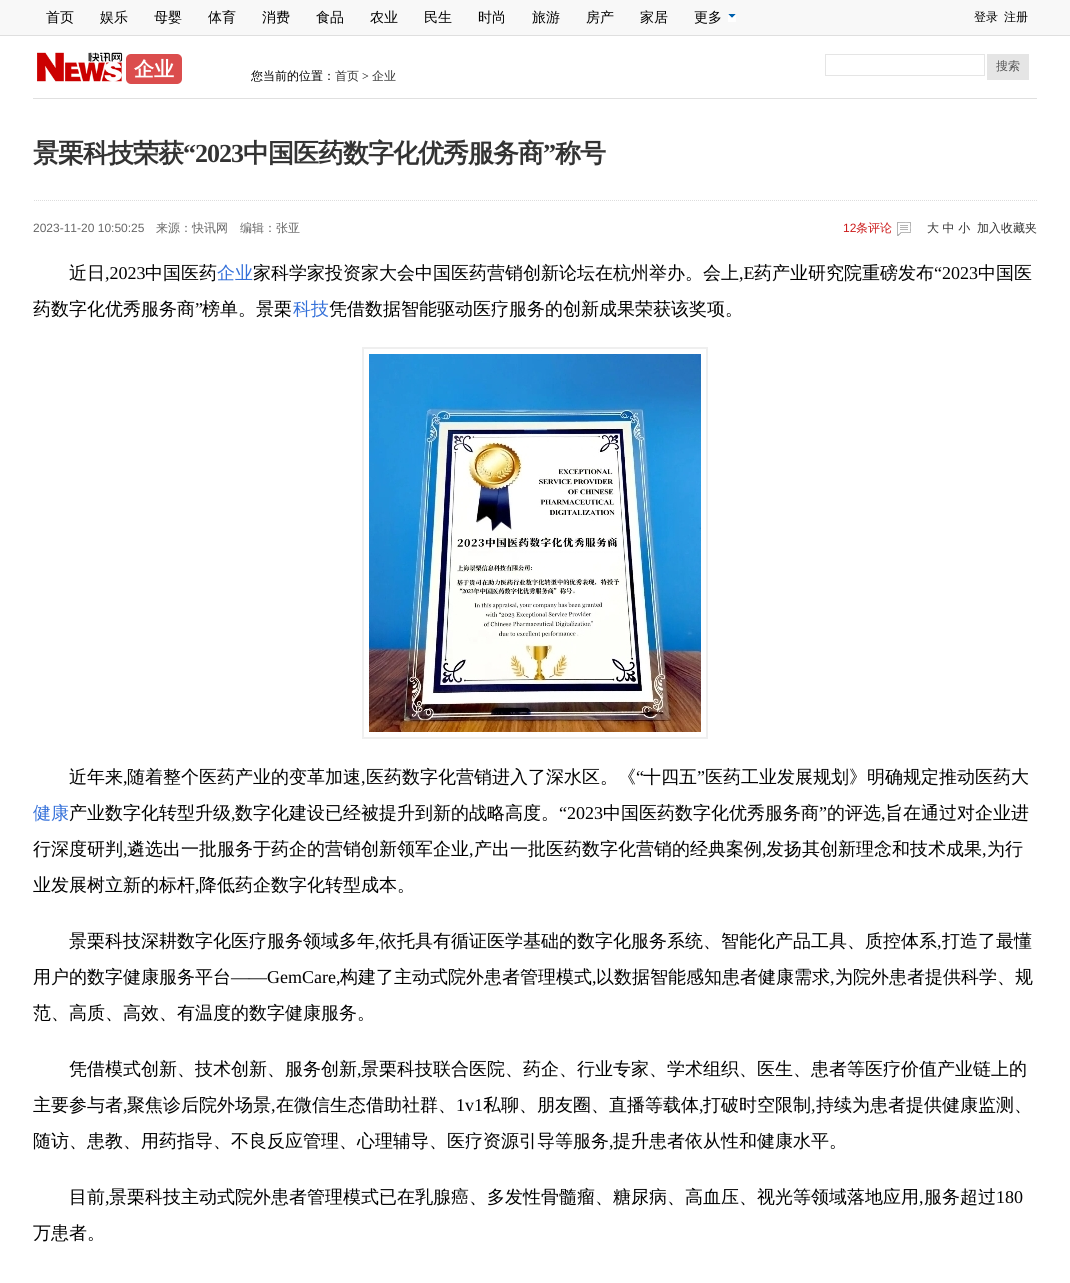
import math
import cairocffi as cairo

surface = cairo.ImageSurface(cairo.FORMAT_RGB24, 1070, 1283)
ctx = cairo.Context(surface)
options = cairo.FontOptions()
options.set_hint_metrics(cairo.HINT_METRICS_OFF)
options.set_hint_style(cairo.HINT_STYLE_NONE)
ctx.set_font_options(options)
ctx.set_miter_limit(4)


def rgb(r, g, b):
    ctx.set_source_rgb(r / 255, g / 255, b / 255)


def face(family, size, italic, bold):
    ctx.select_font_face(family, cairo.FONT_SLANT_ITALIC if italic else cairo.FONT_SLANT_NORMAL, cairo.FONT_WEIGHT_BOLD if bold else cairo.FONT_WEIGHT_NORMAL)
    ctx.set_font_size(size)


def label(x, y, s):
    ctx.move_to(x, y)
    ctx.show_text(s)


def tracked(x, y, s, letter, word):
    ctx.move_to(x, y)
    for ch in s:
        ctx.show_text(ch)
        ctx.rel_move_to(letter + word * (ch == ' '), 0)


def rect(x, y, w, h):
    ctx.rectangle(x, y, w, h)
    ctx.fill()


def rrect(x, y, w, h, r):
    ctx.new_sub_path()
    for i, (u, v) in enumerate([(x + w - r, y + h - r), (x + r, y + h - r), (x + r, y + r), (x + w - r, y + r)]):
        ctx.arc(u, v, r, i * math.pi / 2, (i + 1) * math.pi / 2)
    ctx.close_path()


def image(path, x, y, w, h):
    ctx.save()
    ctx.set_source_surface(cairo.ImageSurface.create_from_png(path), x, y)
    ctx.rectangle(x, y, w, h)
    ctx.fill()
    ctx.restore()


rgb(255, 255, 255)
ctx.paint()
rgb(248, 248, 248)
rect(0, 0, 1070, 35)
rgb(223, 223, 223)
rect(0, 35, 1070, 1)
face('WenQuanYi Zen Hei Medium', 14, 0, 0)
rgb(0, 0, 0)
label(46, 22, '首页')
label(100, 22, '娱乐')
label(154, 22, '母婴')
label(208, 22, '体育')
label(262, 22, '消费')
label(316, 22, '食品')
label(370, 22, '农业')
label(424, 22, '民生')
label(478, 22, '时尚')
label(532, 22, '旅游')
label(586, 22, '房产')
label(640, 22, '家居')
label(694, 22, '更多')
rgb(0, 97, 174)
ctx.new_path()
ctx.move_to(728, 14)
ctx.line_to(736, 14)
ctx.line_to(732, 18)
ctx.close_path()
ctx.fill()
rgb(255, 255, 255)
ctx.new_path()
ctx.move_to(736, 14)
ctx.line_to(736, 22)
ctx.line_to(732, 18)
ctx.close_path()
ctx.fill()
rect(728, 18, 8, 4)
ctx.new_path()
ctx.move_to(728, 22)
ctx.line_to(728, 14)
ctx.line_to(732, 18)
ctx.close_path()
ctx.fill()
face('WenQuanYi Zen Hei Medium', 12, 0, 0)
rgb(0, 0, 0)
label(974, 21, '登录')
label(1004, 21, '注册')
rgb(224, 224, 224)
rect(33, 98, 1004, 1)
image('image0.png', 37, 52, 86, 30)
rgb(219, 77, 77)
rrect(126, 54, 56, 30, 5)
ctx.fill()
face('WenQuanYi Zen Hei', 20, 0, 1)
rgb(255, 255, 255)
label(134, 76, '企业')
face('WenQuanYi Zen Hei Medium', 12, 0, 0)
rgb(0, 0, 0)
label(251, 80, '您当前的位置：')
rgb(51, 51, 51)
label(335, 80, '首页')
face('Liberation Serif', 12, 0, 0)
rgb(0, 0, 0)
label(362, 80, '>')
face('WenQuanYi Zen Hei Medium', 12, 0, 0)
rgb(51, 51, 51)
label(372, 80, '企业')
ctx.rectangle(825.5, 54.5, 159, 21)
rgb(229, 229, 229)
ctx.set_line_width(1)
ctx.stroke()
rect(987, 54, 42, 26)
rgb(85, 85, 85)
label(996, 70, '搜索')
face('WenQuanYi Zen Hei', 26, 0, 1)
rgb(51, 51, 51)
tracked(33, 162, '景栗科技荣获', -1, 0)
face('Liberation Serif', 26, 0, 1)
tracked(183, 162, '“2023', -1, 0)
face('WenQuanYi Zen Hei', 26, 0, 1)
tracked(243, 162, '中国医药数字化优秀服务商', -1, 0)
face('Liberation Serif', 26, 0, 1)
tracked(543, 162, '”', -1, 0)
face('WenQuanYi Zen Hei', 26, 0, 1)
tracked(555, 162, '称号', -1, 0)
image('image1.png', 34, 200, 1003, 1)
face('Liberation Sans', 12, 0, 0)
rgb(102, 102, 102)
label(33, 232, '2023-11-20 10:50:25')
face('WenQuanYi Zen Hei Medium', 12, 0, 0)
label(156, 232, '来源：快讯网')
label(240, 232, '编辑：张亚')
image('image2.png', 897, 222, 14, 14)
face('Liberation Sans', 12, 0, 0)
rgb(204, 27, 27)
label(843, 232, '12')
face('WenQuanYi Zen Hei Medium', 12, 0, 0)
label(856, 232, '条评论')
rgb(51, 51, 51)
label(927, 232, '大 中 小')
label(977, 232, '加入收藏夹')
face('WenQuanYi Zen Hei Medium', 18, 0, 0)
rgb(0, 0, 0)
label(69, 279, '近日')
face('Liberation Serif', 18, 0, 0)
label(105, 279, ',2023')
face('WenQuanYi Zen Hei Medium', 18, 0, 0)
label(145, 279, '中国医药')
rgb(52, 112, 217)
label(217, 279, '企业')
rgb(0, 0, 0)
label(253, 279, '家科学家投资家大会中国医药营销创新论坛在杭州举办。会上')
face('Liberation Serif', 18, 0, 0)
label(739, 279, ',E')
face('WenQuanYi Zen Hei Medium', 18, 0, 0)
label(754, 279, '药产业研究院重磅发布')
face('Liberation Serif', 18, 0, 0)
label(934, 279, '“2023')
face('WenQuanYi Zen Hei Medium', 18, 0, 0)
label(978, 279, '中国医')
ctx.save()
ctx.rectangle(33, 253, 1004, 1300)
ctx.clip()
label(33, 315, '药数字化优秀服务商')
ctx.restore()
face('Liberation Serif', 18, 0, 0)
label(195, 315, '”')
face('WenQuanYi Zen Hei Medium', 18, 0, 0)
label(202, 315, '榜单。景栗')
rgb(52, 112, 217)
label(293, 315, '科技')
rgb(0, 0, 0)
label(329, 315, '凭借数据智能驱动医疗服务的创新成果荣获该奖项。')
ctx.rectangle(363, 348, 344, 390)
rgb(239, 239, 239)
ctx.set_line_width(2)
ctx.stroke()
image('image3.png', 369, 354, 332, 378)
rgb(0, 0, 0)
label(69, 783, '近年来')
label(127, 783, '随着整个医药产业的变革加速')
label(366, 783, '医药数字化营销进入了深水区。《')
face('Liberation Serif', 18, 0, 0)
label(636, 783, '“')
face('WenQuanYi Zen Hei Medium', 18, 0, 0)
label(643, 783, '十四五')
face('Liberation Serif', 18, 0, 0)
label(697, 783, '”')
face('WenQuanYi Zen Hei Medium', 18, 0, 0)
label(705, 783, '医药工业发展规划》明确规定推动医药大')
face('Liberation Serif', 18, 0, 0)
label(123, 783, ',')
label(361, 783, ',')
face('WenQuanYi Zen Hei Medium', 18, 0, 0)
rgb(52, 112, 217)
label(33, 819, '健康')
rgb(0, 0, 0)
label(69, 819, '产业数字化转型升级')
label(235, 819, '数字化建设已经被提升到新的战略高度。')
face('Liberation Serif', 18, 0, 0)
label(559, 819, '“2023')
face('WenQuanYi Zen Hei Medium', 18, 0, 0)
label(603, 819, '中国医药数字化优秀服务商')
face('Liberation Serif', 18, 0, 0)
label(819, 819, '”')
face('WenQuanYi Zen Hei Medium', 18, 0, 0)
label(827, 819, '的评选')
label(885, 819, '旨在通过对企业进')
face('Liberation Serif', 18, 0, 0)
label(231, 819, ',')
label(881, 819, ',')
face('WenQuanYi Zen Hei Medium', 18, 0, 0)
label(33, 855, '行深度研判')
face('Liberation Serif', 18, 0, 0)
label(123, 855, ',')
face('WenQuanYi Zen Hei Medium', 18, 0, 0)
label(127, 855, '遴选出一批服务于药企的营销创新领军企业')
face('Liberation Serif', 18, 0, 0)
label(469, 855, ',')
face('WenQuanYi Zen Hei Medium', 18, 0, 0)
label(474, 855, '产出一批医药数字化营销的经典案例')
face('Liberation Serif', 18, 0, 0)
label(762, 855, ',')
face('WenQuanYi Zen Hei Medium', 18, 0, 0)
label(766, 855, '发扬其创新理念和技术成果')
face('Liberation Serif', 18, 0, 0)
label(982, 855, ',')
face('WenQuanYi Zen Hei Medium', 18, 0, 0)
label(987, 855, '为行')
label(33, 891, '业发展树立新的标杆')
face('Liberation Serif', 18, 0, 0)
label(195, 891, ',')
face('WenQuanYi Zen Hei Medium', 18, 0, 0)
label(199, 891, '降低药企数字化转型成本。')
label(69, 947, '景栗科技深耕数字化医疗服务领域多年')
face('Liberation Serif', 18, 0, 0)
label(375, 947, ',')
face('WenQuanYi Zen Hei Medium', 18, 0, 0)
label(379, 947, '依托具有循证医学基础的数字化服务系统、智能化产品工具、质控体系')
face('Liberation Serif', 18, 0, 0)
label(937, 947, ',')
face('WenQuanYi Zen Hei Medium', 18, 0, 0)
label(942, 947, '打造了最懂')
label(33, 983, '用户的数字健康服务平台')
face('Liberation Serif', 18, 0, 0)
label(231, 983, '——GemCare,')
face('WenQuanYi Zen Hei Medium', 18, 0, 0)
label(340, 983, '构建了主动式院外患者管理模式')
face('Liberation Serif', 18, 0, 0)
label(592, 983, ',')
face('WenQuanYi Zen Hei Medium', 18, 0, 0)
label(596, 983, '以数据智能感知患者健康需求')
face('Liberation Serif', 18, 0, 0)
label(830, 983, ',')
face('WenQuanYi Zen Hei Medium', 18, 0, 0)
label(835, 983, '为院外患者提供科学、规')
label(33, 1019, '范、高质、高效、有温度的数字健康服务。')
label(69, 1075, '凭借模式创新、技术创新、服务创新')
face('Liberation Serif', 18, 0, 0)
label(357, 1075, ',')
face('WenQuanYi Zen Hei Medium', 18, 0, 0)
label(361, 1075, '景栗科技联合医院、药企、行业专家、学术组织、医生、患者等医疗价值产业链上的')
label(33, 1111, '主要参与者')
face('Liberation Serif', 18, 0, 0)
label(123, 1111, ',')
face('WenQuanYi Zen Hei Medium', 18, 0, 0)
label(127, 1111, '聚焦诊后院外场景')
face('Liberation Serif', 18, 0, 0)
label(271, 1111, ',')
face('WenQuanYi Zen Hei Medium', 18, 0, 0)
label(276, 1111, '在微信生态借助社群、')
face('Liberation Serif', 18, 0, 0)
label(456, 1111, '1v1')
face('WenQuanYi Zen Hei Medium', 18, 0, 0)
label(483, 1111, '私聊、朋友圈、直播等载体')
face('Liberation Serif', 18, 0, 0)
label(699, 1111, ',')
face('WenQuanYi Zen Hei Medium', 18, 0, 0)
label(703, 1111, '打破时空限制')
face('Liberation Serif', 18, 0, 0)
label(811, 1111, ',')
face('WenQuanYi Zen Hei Medium', 18, 0, 0)
label(816, 1111, '持续为患者提供健康监测、')
label(33, 1147, '随访、患教、用药指导、不良反应管理、心理辅导、医疗资源引导等服务')
face('Liberation Serif', 18, 0, 0)
label(609, 1147, ',')
face('WenQuanYi Zen Hei Medium', 18, 0, 0)
label(613, 1147, '提升患者依从性和健康水平。')
label(69, 1203, '目前')
face('Liberation Serif', 18, 0, 0)
label(105, 1203, ',')
face('WenQuanYi Zen Hei Medium', 18, 0, 0)
label(109, 1203, '景栗科技主动式院外患者管理模式已在乳腺癌、多发性骨髓瘤、糖尿病、高血压、视光等领域落地应用')
face('Liberation Serif', 18, 0, 0)
label(919, 1203, ',')
face('WenQuanYi Zen Hei Medium', 18, 0, 0)
label(924, 1203, '服务超过')
face('Liberation Serif', 18, 0, 0)
label(996, 1203, '180')
face('WenQuanYi Zen Hei Medium', 18, 0, 0)
label(33, 1239, '万患者。')
surface.write_to_png('render.png')
